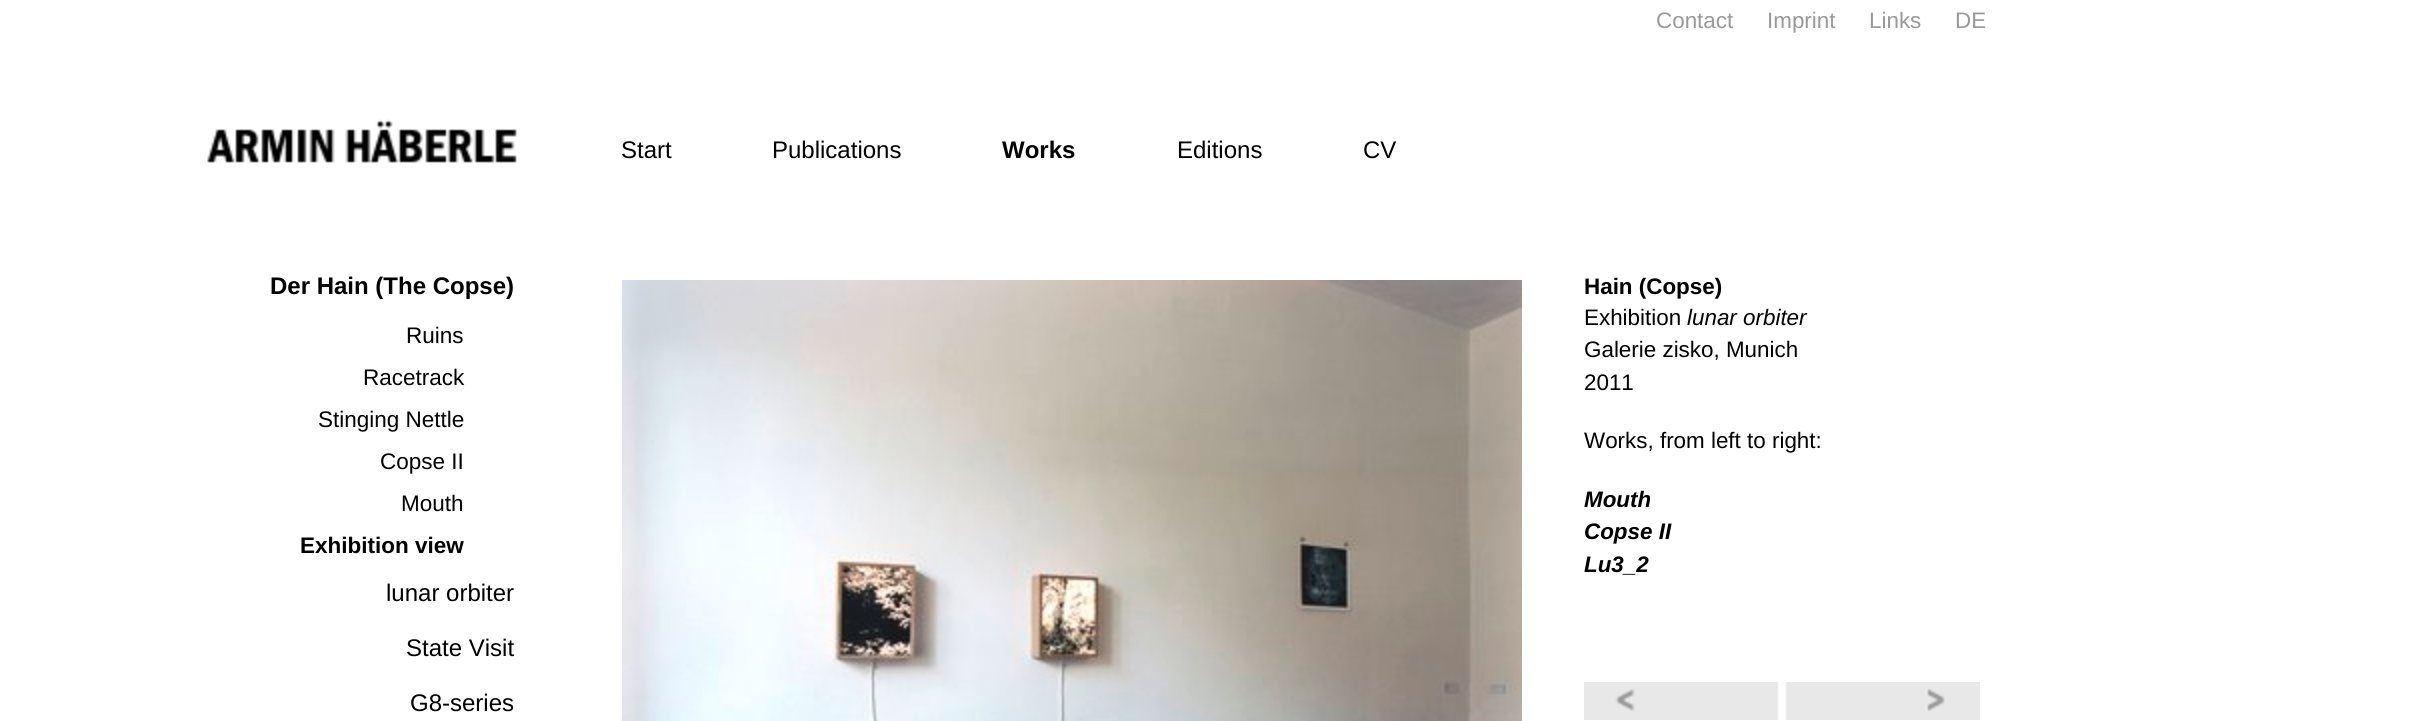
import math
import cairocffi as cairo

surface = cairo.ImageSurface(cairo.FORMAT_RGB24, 2428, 721)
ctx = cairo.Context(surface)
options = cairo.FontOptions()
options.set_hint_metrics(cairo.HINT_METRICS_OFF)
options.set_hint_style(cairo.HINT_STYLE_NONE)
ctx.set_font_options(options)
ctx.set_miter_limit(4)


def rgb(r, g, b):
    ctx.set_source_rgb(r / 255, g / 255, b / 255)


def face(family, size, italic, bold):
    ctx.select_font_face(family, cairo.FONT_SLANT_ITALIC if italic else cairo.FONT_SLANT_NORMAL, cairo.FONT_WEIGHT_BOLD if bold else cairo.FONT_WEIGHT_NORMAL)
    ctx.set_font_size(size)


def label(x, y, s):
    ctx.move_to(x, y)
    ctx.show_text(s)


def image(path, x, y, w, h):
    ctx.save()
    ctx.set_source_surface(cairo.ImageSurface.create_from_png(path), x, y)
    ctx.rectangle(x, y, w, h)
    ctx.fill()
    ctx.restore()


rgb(255, 255, 255)
ctx.paint()
face('Liberation Sans', 22.4, 0, 0)
rgb(153, 153, 153)
label(1656, 28, 'Contact')
label(1767, 28, 'Imprint')
label(1869, 28, 'Links')
label(1955, 28, 'DE')
image('image0.png', 207, 119, 310, 44)
face('Liberation Sans', 24, 0, 0)
rgb(0, 0, 0)
label(621, 158, 'Start')
label(772, 158, 'Publications')
face('Liberation Sans', 24, 0, 1)
label(1002, 158, 'Works')
face('Liberation Sans', 24, 0, 0)
label(1177, 158, 'Editions')
label(1363, 158, 'CV')
face('Liberation Sans', 24, 0, 1)
label(270, 294, 'Der Hain (The Copse)')
face('Liberation Sans', 22.5, 0, 0)
label(406, 343, 'Ruins')
label(363, 385, 'Racetrack')
label(318, 427, 'Stinging Nettle')
label(380, 469, 'Copse II')
label(401, 511, 'Mouth')
face('Liberation Sans', 22.5, 0, 1)
label(300, 553, 'Exhibition view')
face('Liberation Sans', 24, 0, 0)
label(386, 601, 'lunar orbiter')
label(406, 656, 'State Visit')
label(410, 711, 'G8-series')
image('image1.png', 622, 280, 900, 441)
face('Liberation Sans', 22.4, 0, 1)
label(1584, 294, 'Hain (Copse)')
face('Liberation Sans', 22.4, 0, 0)
label(1584, 325, 'Exhibition')
face('Liberation Sans', 22.4, 1, 0)
label(1687, 325, 'lunar orbiter')
face('Liberation Sans', 22.4, 0, 0)
label(1584, 357, 'Galerie zisko, Munich')
label(1584, 390, '2011')
label(1584, 448, 'Works, from left to right:')
face('Liberation Sans', 22.4, 1, 1)
label(1584, 507, 'Mouth')
label(1584, 539, 'Copse II')
label(1584, 572, 'Lu3_2')
image('image2.png', 1584, 682, 195, 38)
image('image3.png', 1785, 682, 195, 38)
surface.write_to_png('render.png')
